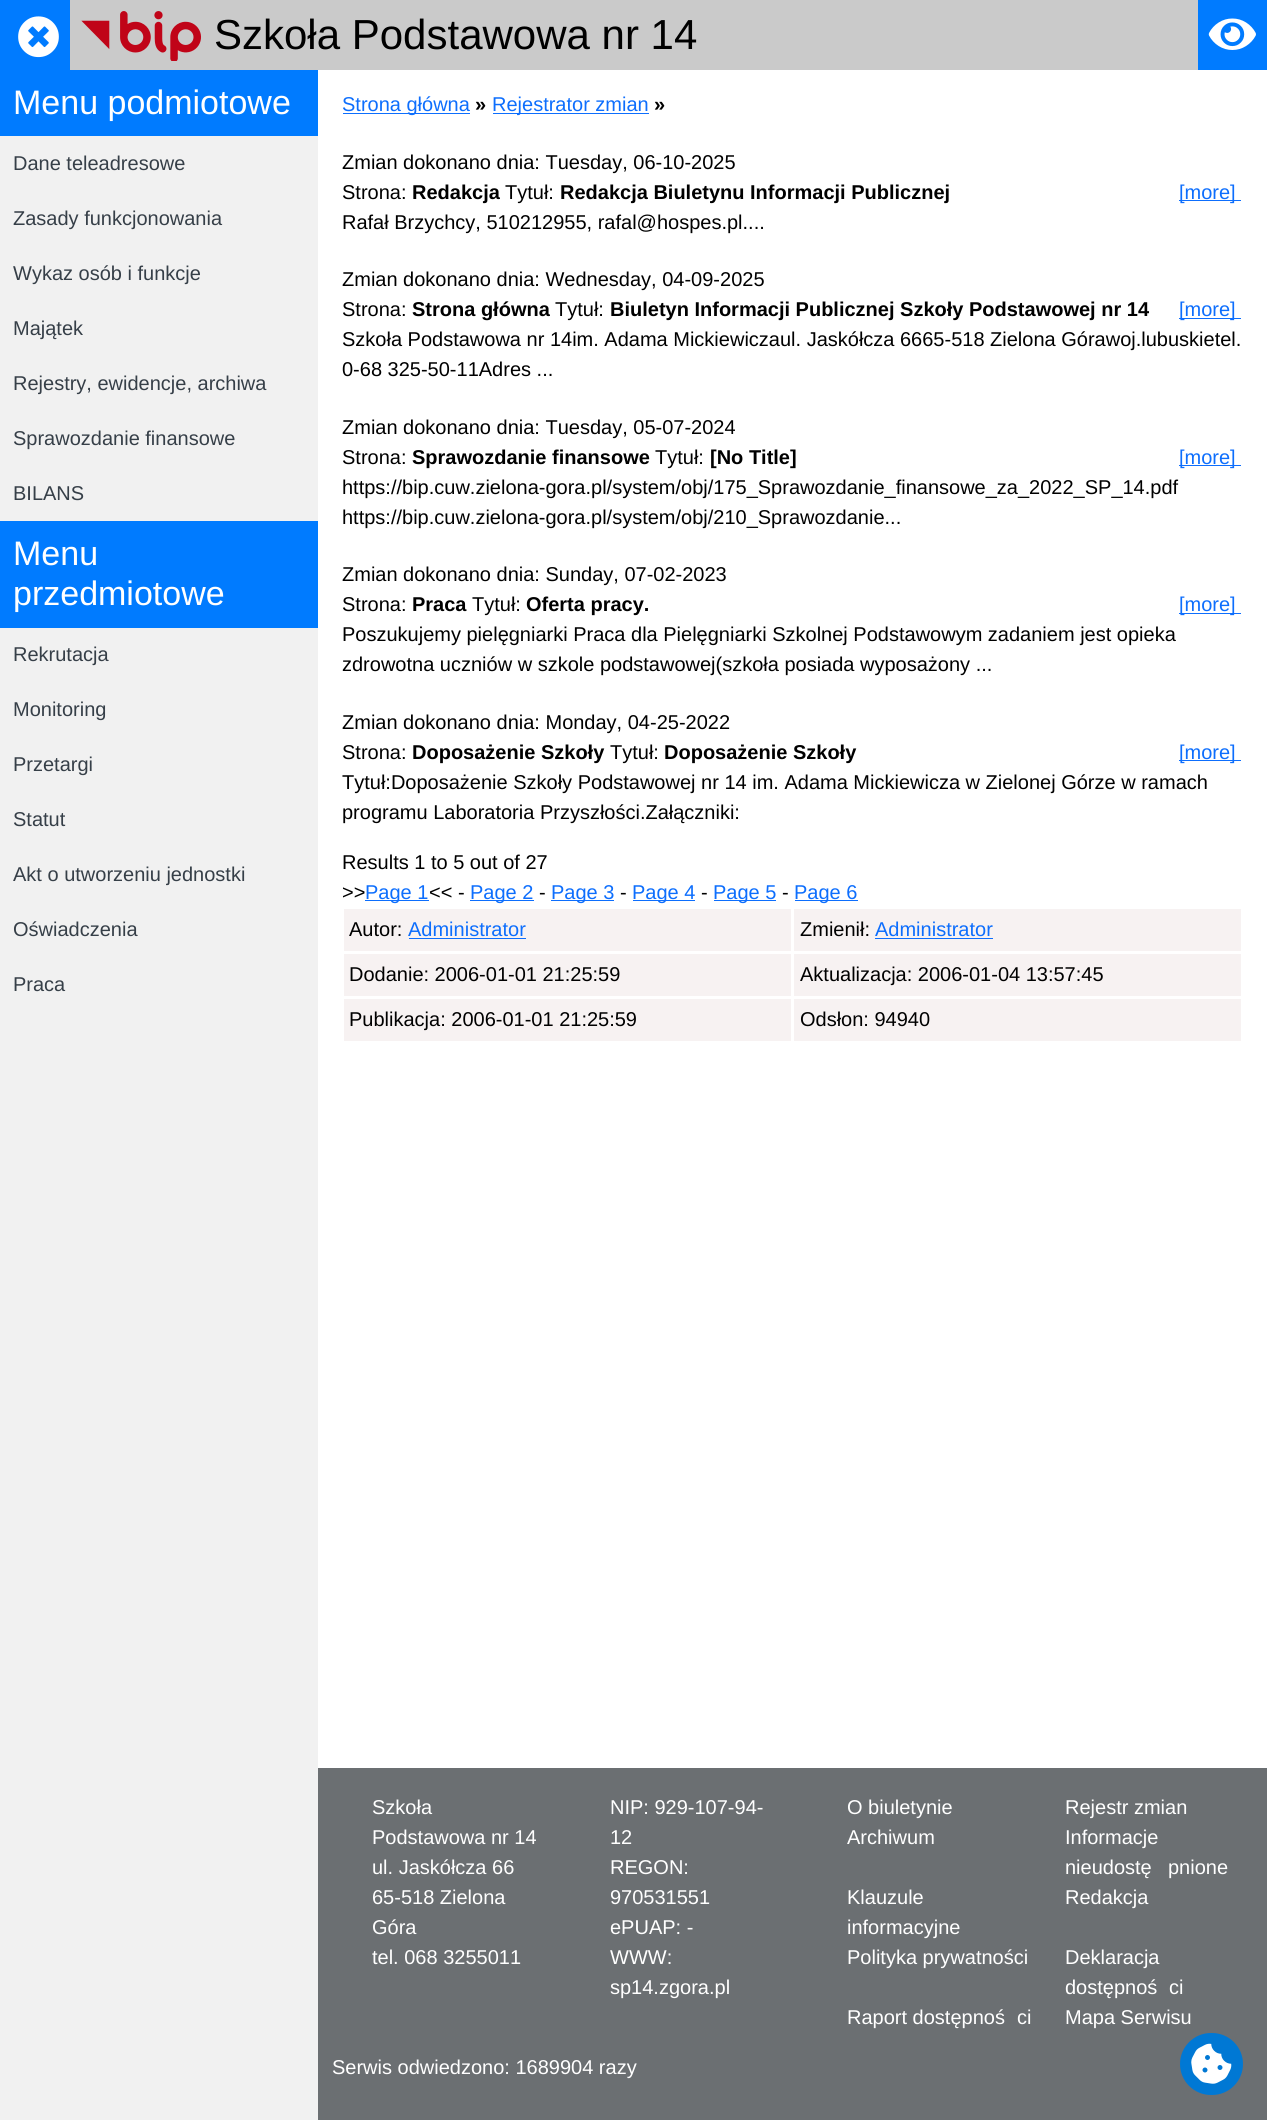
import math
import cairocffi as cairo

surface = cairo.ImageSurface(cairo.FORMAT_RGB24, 1267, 2120)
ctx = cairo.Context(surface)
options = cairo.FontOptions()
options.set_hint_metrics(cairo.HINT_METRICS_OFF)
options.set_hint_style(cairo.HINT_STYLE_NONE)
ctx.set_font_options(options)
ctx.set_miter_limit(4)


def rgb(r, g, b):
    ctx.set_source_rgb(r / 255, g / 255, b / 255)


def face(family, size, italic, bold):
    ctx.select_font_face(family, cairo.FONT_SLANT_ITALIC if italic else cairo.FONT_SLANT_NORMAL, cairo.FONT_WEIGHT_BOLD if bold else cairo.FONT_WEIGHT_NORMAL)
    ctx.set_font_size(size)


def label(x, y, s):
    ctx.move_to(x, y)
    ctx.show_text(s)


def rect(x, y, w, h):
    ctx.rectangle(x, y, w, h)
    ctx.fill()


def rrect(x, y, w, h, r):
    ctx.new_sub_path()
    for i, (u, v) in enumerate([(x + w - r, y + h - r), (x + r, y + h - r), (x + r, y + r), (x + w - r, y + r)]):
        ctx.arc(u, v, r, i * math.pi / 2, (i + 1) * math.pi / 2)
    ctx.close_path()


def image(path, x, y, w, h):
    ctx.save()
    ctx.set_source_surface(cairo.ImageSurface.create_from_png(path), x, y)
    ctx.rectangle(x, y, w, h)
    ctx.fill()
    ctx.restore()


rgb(255, 255, 255)
ctx.paint()
rgb(202, 202, 202)
rect(70, 0, 1128, 70)
rgb(0, 123, 255)
rect(0, 0, 70, 70)
image('image0.png', 18, 16, 41, 42)
image('image1.png', 81, 11, 120, 50)
face('Liberation Sans', 42, 0, 0)
rgb(0, 0, 0)
label(214, 49, 'Szkoła Podstawowa nr 14')
rgb(0, 123, 255)
rect(1198, 0, 69, 70)
image('image2.png', 1208, 18, 48, 32)
rgb(241, 241, 241)
rect(0, 136, 318, 1984)
rgb(0, 123, 255)
rect(0, 70, 318, 66)
face('Liberation Sans', 34, 0, 0)
rgb(255, 255, 255)
label(13, 114, 'Menu podmiotowe')
face('Liberation Sans', 20, 0, 0)
rgb(54, 63, 72)
label(13, 170, 'Dane teleadresowe')
label(13, 225, 'Zasady funkcjonowania')
label(13, 280, 'Wykaz osób i funkcje')
label(13, 335, 'Majątek')
label(13, 390, 'Rejestry, ewidencje, archiwa')
label(13, 445, 'Sprawozdanie finansowe')
label(13, 500, 'BILANS')
rgb(0, 123, 255)
rect(0, 521, 318, 107)
face('Liberation Sans', 34, 0, 0)
rgb(255, 255, 255)
label(13, 565, 'Menu')
label(13, 605, 'przedmiotowe')
face('Liberation Sans', 20, 0, 0)
rgb(54, 63, 72)
label(13, 661, 'Rekrutacja')
label(13, 716, 'Monitoring')
label(13, 771, 'Przetargi')
label(13, 826, 'Statut')
label(13, 881, 'Akt o utworzeniu jednostki')
label(13, 936, 'Oświadczenia')
label(13, 991, 'Praca')
rgb(13, 110, 253)
rect(343, 113, 127, 1)
label(342, 111, 'Strona główna')
face('Liberation Sans', 20, 0, 1)
rgb(0, 0, 0)
label(475, 111, '»')
rgb(13, 110, 253)
rect(493, 113, 156, 1)
face('Liberation Sans', 20, 0, 0)
label(492, 111, 'Rejestrator zmian')
face('Liberation Sans', 20, 0, 1)
rgb(0, 0, 0)
label(654, 111, '»')
face('Liberation Sans', 20, 0, 0)
label(342, 169, 'Zmian dokonano dnia: Tuesday, 06-10-2025')
label(342, 199, 'Strona:')
face('Liberation Sans', 20, 0, 1)
label(412, 199, 'Redakcja')
face('Liberation Sans', 20, 0, 0)
label(505, 199, 'Tytuł:')
face('Liberation Sans', 20, 0, 1)
label(560, 199, 'Redakcja Biuletynu Informacji Publicznej')
rgb(13, 110, 253)
rect(1179, 200, 62, 1)
face('Liberation Sans', 20, 0, 0)
label(1179, 199, '[more]')
rgb(0, 0, 0)
label(342, 229, 'Rafał Brzychcy, 510212955, rafal@hospes.pl....')
label(342, 286, 'Zmian dokonano dnia: Wednesday, 04-09-2025')
label(342, 316, 'Strona:')
face('Liberation Sans', 20, 0, 1)
label(412, 316, 'Strona główna')
face('Liberation Sans', 20, 0, 0)
label(555, 316, 'Tytuł:')
face('Liberation Sans', 20, 0, 1)
label(610, 316, 'Biuletyn Informacji Publicznej Szkoły Podstawowej nr 14')
rgb(13, 110, 253)
rect(1179, 318, 62, 1)
face('Liberation Sans', 20, 0, 0)
label(1179, 316, '[more]')
rgb(0, 0, 0)
label(342, 346, 'Szkoła Podstawowa nr 14im. Adama Mickiewiczaul. Jaskółcza 6665-518 Zielona Górawoj.lubuskietel.')
label(342, 376, '0-68 325-50-11Adres ...')
label(342, 434, 'Zmian dokonano dnia: Tuesday, 05-07-2024')
label(342, 464, 'Strona:')
face('Liberation Sans', 20, 0, 1)
label(412, 464, 'Sprawozdanie finansowe')
face('Liberation Sans', 20, 0, 0)
label(655, 464, 'Tytuł:')
face('Liberation Sans', 20, 0, 1)
label(710, 464, '[No Title]')
rgb(13, 110, 253)
rect(1179, 465, 62, 1)
face('Liberation Sans', 20, 0, 0)
label(1179, 464, '[more]')
rgb(0, 0, 0)
label(342, 494, 'https://bip.cuw.zielona-gora.pl/system/obj/175_Sprawozdanie_finansowe_za_2022_SP_14.pdf')
label(342, 524, 'https://bip.cuw.zielona-gora.pl/system/obj/210_Sprawozdanie...')
label(342, 581, 'Zmian dokonano dnia: Sunday, 07-02-2023')
label(342, 611, 'Strona:')
face('Liberation Sans', 20, 0, 1)
label(412, 611, 'Praca')
face('Liberation Sans', 20, 0, 0)
label(472, 611, 'Tytuł:')
face('Liberation Sans', 20, 0, 1)
label(526, 611, 'Oferta pracy.')
rgb(13, 110, 253)
rect(1179, 613, 62, 1)
face('Liberation Sans', 20, 0, 0)
label(1179, 611, '[more]')
rgb(0, 0, 0)
label(342, 641, 'Poszukujemy pielęgniarki Praca dla Pielęgniarki Szkolnej Podstawowym zadaniem jest opieka')
label(342, 671, 'zdrowotna uczniów w szkole podstawowej(szkoła posiada wyposażony ...')
label(342, 729, 'Zmian dokonano dnia: Monday, 04-25-2022')
label(342, 759, 'Strona:')
face('Liberation Sans', 20, 0, 1)
label(412, 759, 'Doposażenie Szkoły')
face('Liberation Sans', 20, 0, 0)
label(610, 759, 'Tytuł:')
face('Liberation Sans', 20, 0, 1)
label(664, 759, 'Doposażenie Szkoły')
rgb(13, 110, 253)
rect(1179, 760, 62, 1)
face('Liberation Sans', 20, 0, 0)
label(1179, 759, '[more]')
rgb(0, 0, 0)
label(342, 789, 'Tytuł:Doposażenie Szkoły Podstawowej nr 14 im. Adama Mickiewicza w Zielonej Górze w ramach')
label(342, 819, 'programu Laboratoria Przyszłości.Załączniki:')
label(342, 869, 'Results 1 to 5 out of 27')
label(342, 899, '>>')
rgb(13, 110, 253)
rect(365, 900, 64, 1)
label(365, 899, 'Page 1')
rgb(0, 0, 0)
label(429, 899, '<< -')
rgb(13, 110, 253)
rect(470, 900, 64, 1)
label(470, 899, 'Page 2')
rgb(0, 0, 0)
label(539, 899, '-')
rgb(13, 110, 253)
rect(551, 900, 63, 1)
label(551, 899, 'Page 3')
rgb(0, 0, 0)
label(620, 899, '-')
rgb(13, 110, 253)
rect(633, 900, 62, 1)
label(632, 899, 'Page 4')
rgb(0, 0, 0)
label(701, 899, '-')
rgb(13, 110, 253)
rect(714, 900, 62, 1)
label(713, 899, 'Page 5')
rgb(0, 0, 0)
label(782, 899, '-')
rgb(13, 110, 253)
rect(795, 900, 63, 1)
label(794, 899, 'Page 6')
rgb(247, 242, 242)
rect(344, 909, 447, 42)
rgb(0, 0, 0)
label(349, 936, 'Autor:')
rgb(13, 110, 253)
label(408, 936, 'Administrator')
rect(409, 938, 117, 1)
rgb(247, 242, 242)
rect(794, 909, 447, 42)
rgb(0, 0, 0)
label(800, 936, 'Zmienił:')
rgb(13, 110, 253)
label(875, 936, 'Administrator')
rect(875, 938, 118, 1)
rgb(247, 242, 242)
rect(344, 954, 447, 42)
rgb(0, 0, 0)
label(349, 981, 'Dodanie: 2006-01-01 21:25:59')
rgb(247, 242, 242)
rect(794, 954, 447, 42)
rgb(0, 0, 0)
label(800, 981, 'Aktualizacja: 2006-01-04 13:57:45')
rgb(247, 242, 242)
rect(344, 999, 447, 42)
rgb(0, 0, 0)
label(349, 1026, 'Publikacja: 2006-01-01 21:25:59')
rgb(247, 242, 242)
rect(794, 999, 447, 42)
rgb(0, 0, 0)
label(800, 1026, 'Odsłon: 94940')
rgb(107, 111, 114)
rect(318, 1768, 949, 352)
rgb(255, 255, 255)
label(372, 1814, 'Szkoła')
label(372, 1844, 'Podstawowa nr 14')
label(372, 1874, 'ul. Jaskółcza 66')
label(372, 1904, '65-518 Zielona')
label(372, 1934, 'Góra')
label(372, 1964, 'tel. 068 3255011')
label(610, 1814, 'NIP: 929-107-94-')
label(610, 1844, '12')
label(610, 1874, 'REGON:')
label(610, 1904, '970531551')
label(610, 1934, 'ePUAP: -')
label(610, 1964, 'WWW:')
label(610, 1994, 'sp14.zgora.pl')
label(847, 1814, 'O biuletynie')
label(1065, 1814, 'Rejestr zmian')
label(847, 1844, 'Archiwum')
label(1065, 1844, 'Informacje')
label(1065, 1874, 'nieudostę')
label(1168, 1874, 'pnione')
label(847, 1904, 'Klauzule')
label(847, 1934, 'informacyjne')
label(1065, 1904, 'Redakcja')
label(847, 1964, 'Polityka prywatności')
label(1065, 1964, 'Deklaracja')
label(1065, 1994, 'dostępnoś')
label(1169, 1994, 'ci')
label(847, 2024, 'Raport dostępnoś')
label(1017, 2024, 'ci')
label(1065, 2024, 'Mapa Serwisu')
label(332, 2074, 'Serwis odwiedzono: 1689904 razy')
rgb(0, 120, 212)
rrect(1180, 2033, 63, 62, 31)
ctx.fill()
image('image3.png', 1191, 2043, 41, 41)
surface.write_to_png('render.png')
